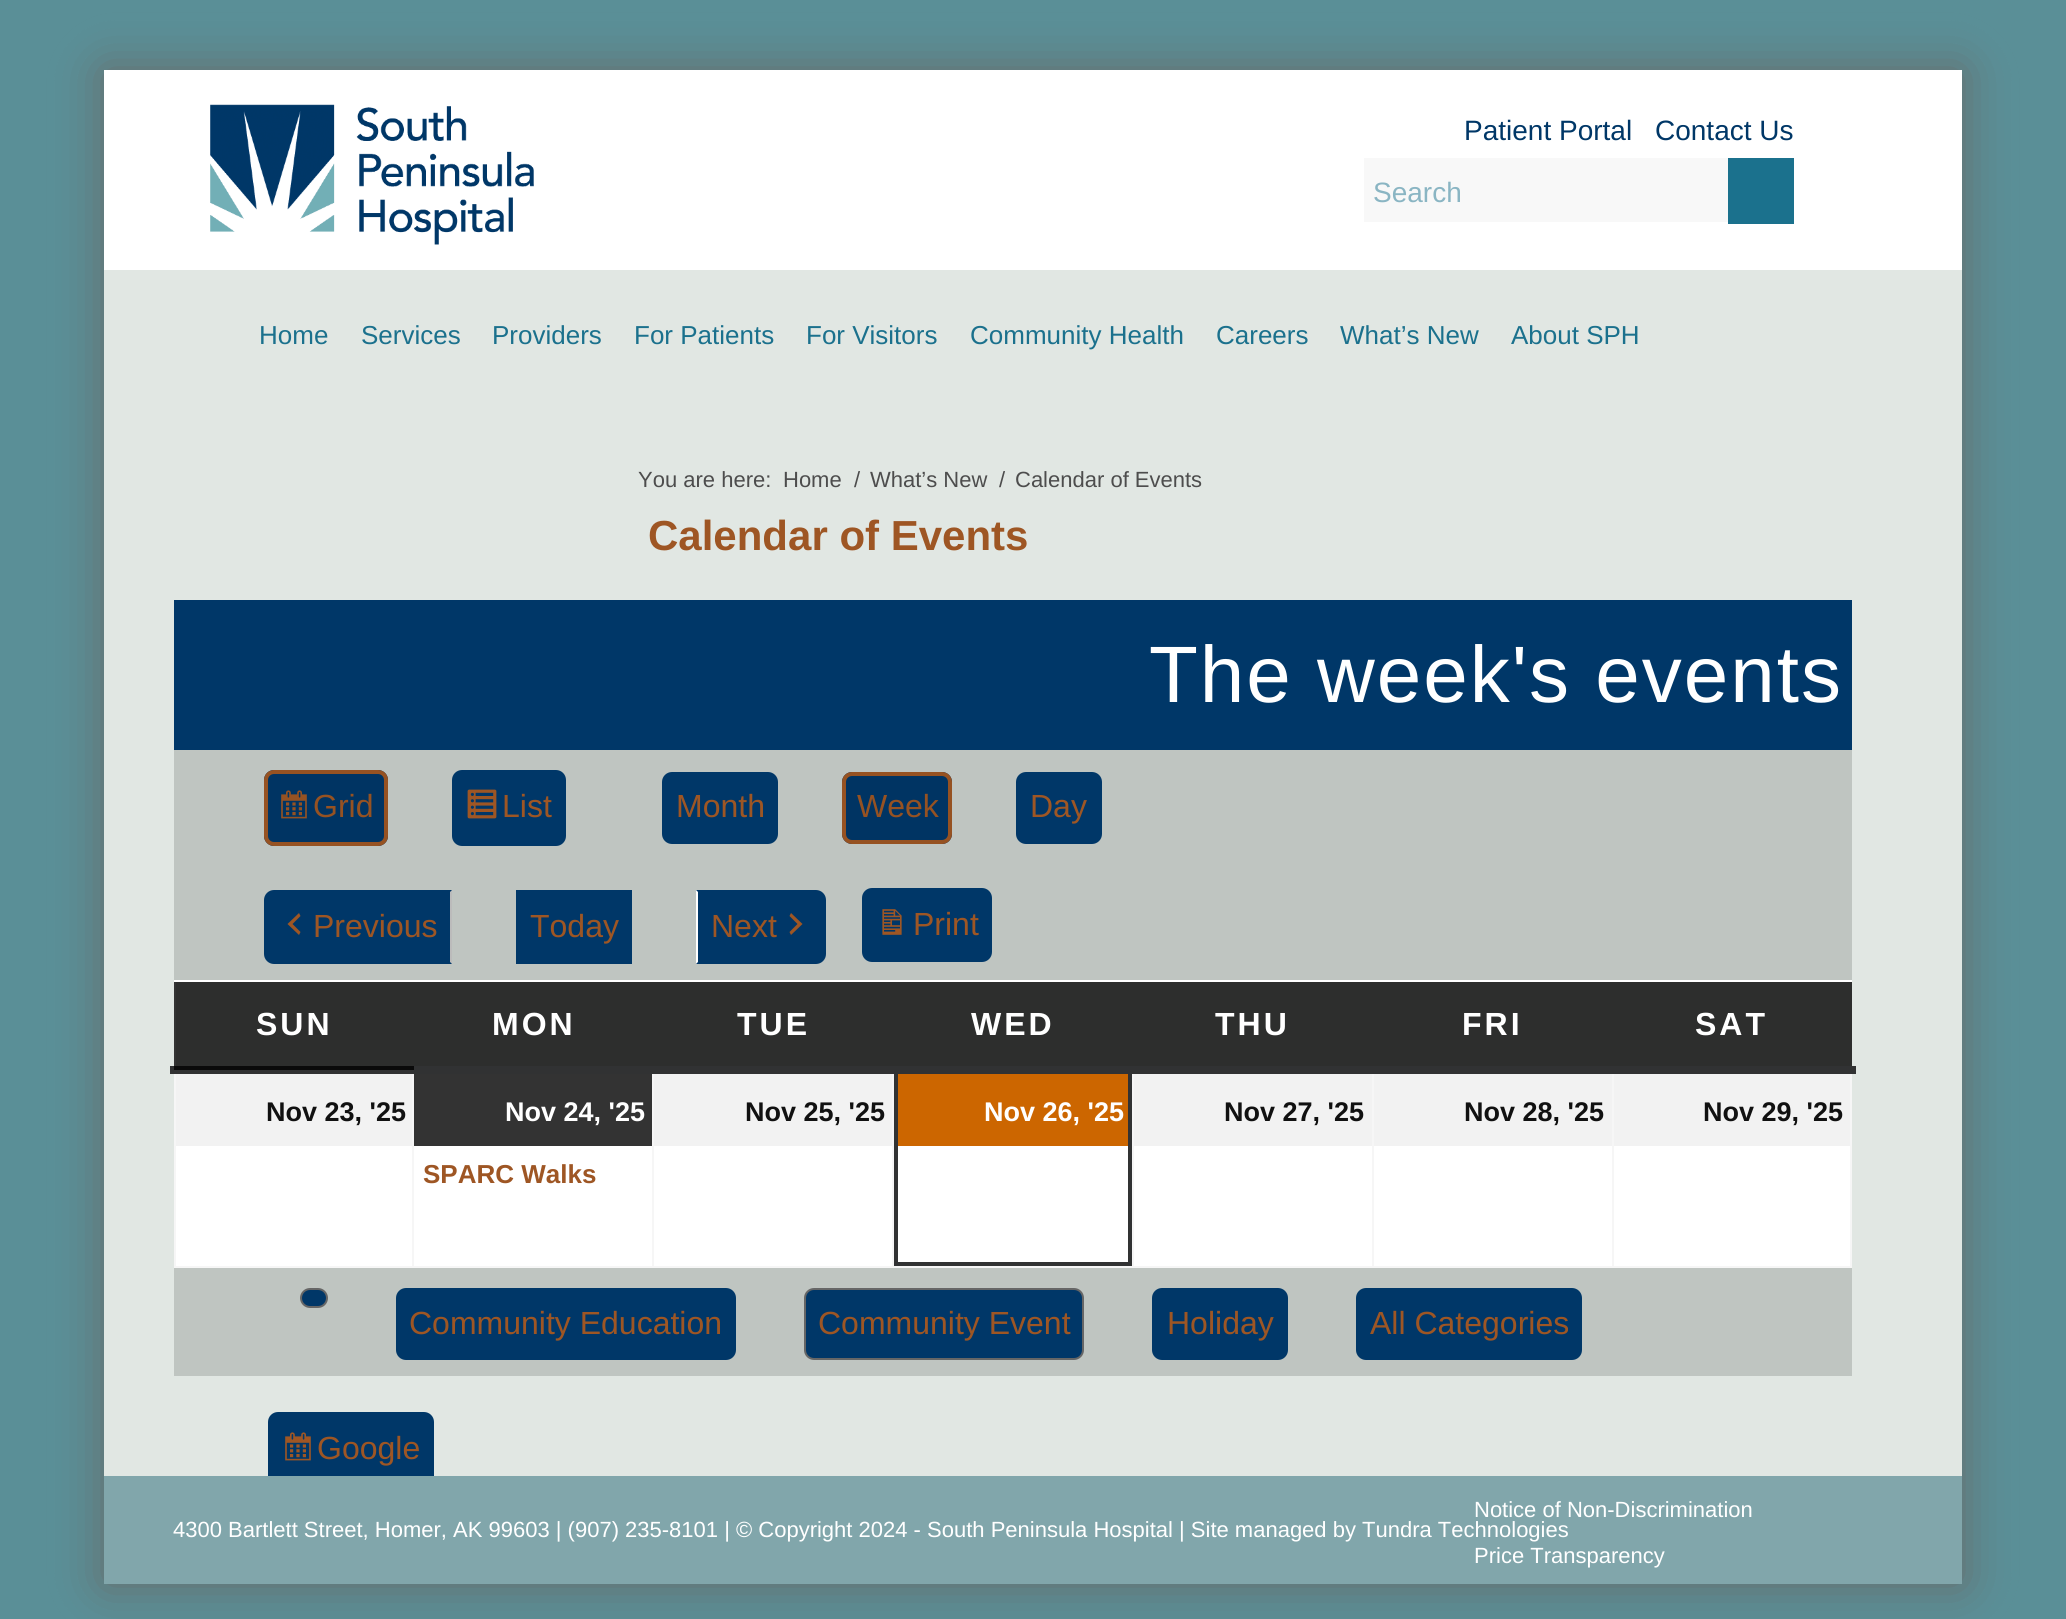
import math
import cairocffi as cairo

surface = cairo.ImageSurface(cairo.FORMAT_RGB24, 2066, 1619)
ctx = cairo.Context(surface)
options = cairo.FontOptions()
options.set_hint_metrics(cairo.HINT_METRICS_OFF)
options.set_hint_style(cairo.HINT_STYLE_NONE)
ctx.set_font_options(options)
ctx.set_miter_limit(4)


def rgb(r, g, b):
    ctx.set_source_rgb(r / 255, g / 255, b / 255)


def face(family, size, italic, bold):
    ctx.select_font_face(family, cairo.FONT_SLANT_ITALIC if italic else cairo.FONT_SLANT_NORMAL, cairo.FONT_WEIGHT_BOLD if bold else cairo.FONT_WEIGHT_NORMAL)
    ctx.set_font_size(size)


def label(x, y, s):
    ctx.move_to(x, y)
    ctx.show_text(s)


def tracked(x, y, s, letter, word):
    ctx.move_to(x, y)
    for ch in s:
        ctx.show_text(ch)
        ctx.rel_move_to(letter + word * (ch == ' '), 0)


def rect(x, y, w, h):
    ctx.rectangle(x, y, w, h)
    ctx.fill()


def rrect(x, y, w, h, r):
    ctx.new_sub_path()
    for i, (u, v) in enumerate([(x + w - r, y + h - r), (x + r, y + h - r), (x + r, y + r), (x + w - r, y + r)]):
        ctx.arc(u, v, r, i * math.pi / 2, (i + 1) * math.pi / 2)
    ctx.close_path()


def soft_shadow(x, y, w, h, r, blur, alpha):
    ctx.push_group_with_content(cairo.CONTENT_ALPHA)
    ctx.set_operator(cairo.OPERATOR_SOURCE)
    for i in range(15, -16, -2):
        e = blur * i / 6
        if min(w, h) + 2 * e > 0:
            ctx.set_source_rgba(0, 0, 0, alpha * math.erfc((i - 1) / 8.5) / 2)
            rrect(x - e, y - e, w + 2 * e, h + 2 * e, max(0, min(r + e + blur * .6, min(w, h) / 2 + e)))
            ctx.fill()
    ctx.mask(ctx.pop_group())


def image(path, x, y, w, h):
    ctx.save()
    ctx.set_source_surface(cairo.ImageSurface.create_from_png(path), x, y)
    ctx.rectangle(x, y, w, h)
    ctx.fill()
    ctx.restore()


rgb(90, 143, 151)
ctx.paint()
rgb(104, 105, 104)
soft_shadow(104, 70, 1858, 1514, 0, 23, 1)
rgb(255, 255, 255)
rect(104, 70, 1858, 200)
image('image0.png', 210, 104, 324, 141)
face('Liberation Sans', 28, 0, 0)
rgb(0, 55, 103)
label(1464, 140, 'Patient Portal')
label(1655, 140, 'Contact Us')
rgb(248, 248, 248)
rect(1364, 158, 364, 64)
rgb(138, 181, 195)
label(1373, 202, 'Search')
rgb(27, 113, 141)
rect(1728, 158, 66, 66)
rgb(225, 231, 227)
rect(104, 270, 1858, 1206)
face('Liberation Sans', 26, 0, 0)
rgb(27, 113, 141)
label(259, 344, 'Home')
label(361, 344, 'Services')
label(492, 344, 'Providers')
label(634, 344, 'For Patients')
label(806, 344, 'For Visitors')
label(970, 344, 'Community Health')
label(1216, 344, 'Careers')
label(1340, 344, 'What’s New')
label(1511, 344, 'About SPH')
face('Liberation Sans', 22, 0, 0)
rgb(77, 77, 77)
label(638, 487, 'You are here:')
label(783, 487, 'Home')
label(854, 487, '/')
label(870, 487, 'What’s New')
label(999, 487, '/')
label(1015, 487, 'Calendar of Events')
face('Liberation Sans', 42, 0, 1)
rgb(158, 86, 36)
label(648, 550, 'Calendar of Events')
rgb(45, 46, 45)
rect(176, 982, 1676, 84)
rgb(0, 55, 104)
rect(174, 600, 1678, 150)
face('Liberation Sans', 80, 0, 0)
rgb(255, 255, 255)
tracked(1149, 702, 'The week\'s events', 2, 0)
rgb(191, 197, 193)
rect(174, 750, 1678, 230)
rgb(0, 52, 99)
rrect(264, 770, 124, 76, 10)
ctx.fill()
image('image1.png', 281, 790, 26, 29)
rrect(266, 772, 120, 72, 8)
rgb(150, 82, 34)
ctx.set_line_width(4)
ctx.stroke()
face('Liberation Sans', 32, 0, 0)
label(313, 817, 'Grid')
rgb(0, 55, 104)
rrect(452, 770, 114, 76, 10)
ctx.fill()
image('image2.png', 467, 789, 30, 30)
rgb(158, 86, 36)
label(502, 817, 'List')
rgb(0, 55, 104)
rrect(662, 772, 116, 72, 10)
ctx.fill()
rgb(158, 86, 36)
label(676, 817, 'Month')
rgb(0, 52, 99)
rrect(842, 772, 110, 72, 10)
ctx.fill()
rrect(844, 774, 106, 68, 8)
rgb(150, 82, 34)
ctx.stroke()
label(857, 817, 'Week')
rgb(0, 55, 104)
rrect(1016, 772, 86, 72, 10)
ctx.fill()
rgb(158, 86, 36)
label(1030, 817, 'Day')
rgb(0, 55, 104)
ctx.new_path()
ctx.move_to(274, 890)
ctx.line_to(452, 890)
ctx.line_to(452, 964)
ctx.line_to(274, 964)
ctx.curve_to(268.5, 964, 264, 959.5, 264, 954)
ctx.line_to(264, 900)
ctx.curve_to(264, 894.5, 268.5, 890, 274, 890)
ctx.close_path()
ctx.fill()
rgb(187, 187, 187)
ctx.new_path()
ctx.move_to(452, 890)
ctx.line_to(450, 892)
ctx.line_to(450, 962)
ctx.line_to(452, 964)
ctx.close_path()
ctx.fill()
rgb(158, 86, 36)
ctx.new_path()
ctx.move_to(300.5, 916)
ctx.line_to(292.5, 924)
ctx.line_to(300.5, 932)
ctx.line_to(299, 935)
ctx.line_to(287.5, 924)
ctx.line_to(299, 913)
ctx.close_path()
ctx.fill()
label(313, 937, 'Previous')
rgb(0, 55, 104)
rect(516, 890, 116, 74)
rgb(158, 86, 36)
label(530, 937, 'Today')
rgb(0, 55, 104)
ctx.new_path()
ctx.move_to(696, 890)
ctx.line_to(816, 890)
ctx.curve_to(821.5, 890, 826, 894.5, 826, 900)
ctx.line_to(826, 954)
ctx.curve_to(826, 959.5, 821.5, 964, 816, 964)
ctx.line_to(696, 964)
ctx.close_path()
ctx.fill()
rgb(255, 255, 255)
ctx.new_path()
ctx.move_to(696, 890)
ctx.line_to(696, 964)
ctx.line_to(698, 962)
ctx.line_to(698, 892)
ctx.close_path()
ctx.fill()
rgb(158, 86, 36)
label(711, 937, 'Next')
ctx.new_path()
ctx.move_to(789.5, 932)
ctx.line_to(797.5, 924)
ctx.line_to(789.5, 916)
ctx.line_to(791, 913)
ctx.line_to(802.5, 924)
ctx.line_to(791, 935)
ctx.close_path()
ctx.fill()
rgb(0, 55, 104)
rrect(862, 888, 130, 74, 10)
ctx.fill()
image('image3.png', 882, 909, 20, 26)
rgb(158, 86, 36)
label(913, 935, 'Print')
rgb(51, 51, 51)
rect(174, 982, 2, 88)
rgb(246, 246, 246)
rect(1850, 1070, 2, 198)
rect(1612, 1266, 240, 2)
rgb(255, 255, 255)
rect(176, 1146, 1674, 120)
rgb(246, 246, 246)
rect(1612, 1070, 2, 198)
rect(1372, 1266, 242, 2)
rect(1372, 1070, 2, 198)
rect(1132, 1266, 242, 2)
rect(1132, 1070, 2, 198)
rect(892, 1266, 242, 2)
rect(892, 1070, 2, 198)
rect(652, 1266, 242, 2)
rect(652, 1070, 2, 198)
rect(412, 1266, 242, 2)
rect(412, 1070, 2, 198)
rect(174, 1266, 240, 2)
rect(174, 1070, 2, 198)
rgb(49, 50, 51)
rect(170, 1066, 1686, 8)
rgb(10, 10, 10)
rect(174, 1066, 240, 4)
face('Liberation Sans', 32, 0, 1)
rgb(255, 255, 255)
tracked(256, 1035, 'SUN', 3, 0)
tracked(492, 1035, 'MON', 3, 0)
tracked(737, 1035, 'TUE', 3, 0)
tracked(971, 1035, 'WED', 3, 0)
tracked(1215, 1035, 'THU', 3, 0)
tracked(1462, 1035, 'FRI', 3, 0)
rect(174, 980, 1678, 2)
tracked(1695, 1035, 'SAT', 3, 0)
rgb(242, 242, 242)
rect(176, 1074, 236, 72)
face('Liberation Sans', 27, 0, 1)
rgb(17, 17, 17)
label(266, 1121, 'Nov 23, \'25')
rgb(51, 51, 51)
rect(414, 1074, 238, 72)
rgb(255, 255, 255)
label(505, 1121, 'Nov 24, \'25')
face('Liberation Sans', 26, 0, 1)
rgb(158, 86, 36)
label(423, 1183, 'SPARC Walks')
rgb(242, 242, 242)
rect(654, 1074, 238, 72)
face('Liberation Sans', 27, 0, 1)
rgb(17, 17, 17)
label(745, 1121, 'Nov 25, \'25')
rgb(204, 102, 0)
rect(898, 1074, 230, 72)
ctx.rectangle(896, 1072, 234, 192)
rgb(49, 50, 51)
ctx.stroke()
rgb(255, 255, 255)
label(984, 1121, 'Nov 26, \'25')
rgb(242, 242, 242)
rect(1134, 1074, 238, 72)
rgb(17, 17, 17)
label(1224, 1121, 'Nov 27, \'25')
rgb(242, 242, 242)
rect(1374, 1074, 238, 72)
rgb(17, 17, 17)
label(1464, 1121, 'Nov 28, \'25')
rgb(242, 242, 242)
rect(1614, 1074, 236, 72)
rgb(17, 17, 17)
label(1703, 1121, 'Nov 29, \'25')
rgb(191, 197, 193)
rect(174, 1268, 1678, 108)
rgb(0, 55, 104)
rrect(301, 1289, 26, 18, 9)
ctx.fill_preserve()
rgb(102, 102, 102)
ctx.set_line_width(2)
ctx.stroke()
rgb(0, 55, 104)
rrect(396, 1288, 340, 72, 10)
ctx.fill()
face('Liberation Sans', 32, 0, 0)
rgb(158, 86, 36)
label(409, 1334, 'Community Education')
rgb(0, 55, 104)
rrect(805, 1289, 278, 70, 9)
ctx.fill_preserve()
rgb(102, 102, 102)
ctx.stroke()
rgb(158, 86, 36)
label(818, 1334, 'Community Event')
rgb(0, 55, 104)
rrect(1152, 1288, 136, 72, 10)
ctx.fill()
rgb(158, 86, 36)
label(1167, 1334, 'Holiday')
rgb(0, 55, 104)
rrect(1356, 1288, 226, 72, 10)
ctx.fill()
rgb(158, 86, 36)
label(1370, 1334, 'All Categories')
rgb(0, 55, 104)
rrect(268, 1412, 166, 76, 10)
ctx.fill()
image('image4.png', 285, 1432, 26, 29)
rgb(158, 86, 36)
label(317, 1459, 'Google')
rgb(129, 166, 171)
rect(104, 1476, 1858, 108)
face('Liberation Sans', 22, 0, 0)
rgb(255, 255, 255)
label(173, 1537, '4300 Bartlett Street, Homer, AK 99603 | (907) 235-8101 | © Copyright 2024 - South Peninsula Hospital | Site managed by Tundra Technologies')
label(1474, 1517, 'Notice of Non-Discrimination')
label(1474, 1563, 'Price Transparency')
surface.write_to_png('render.png')
